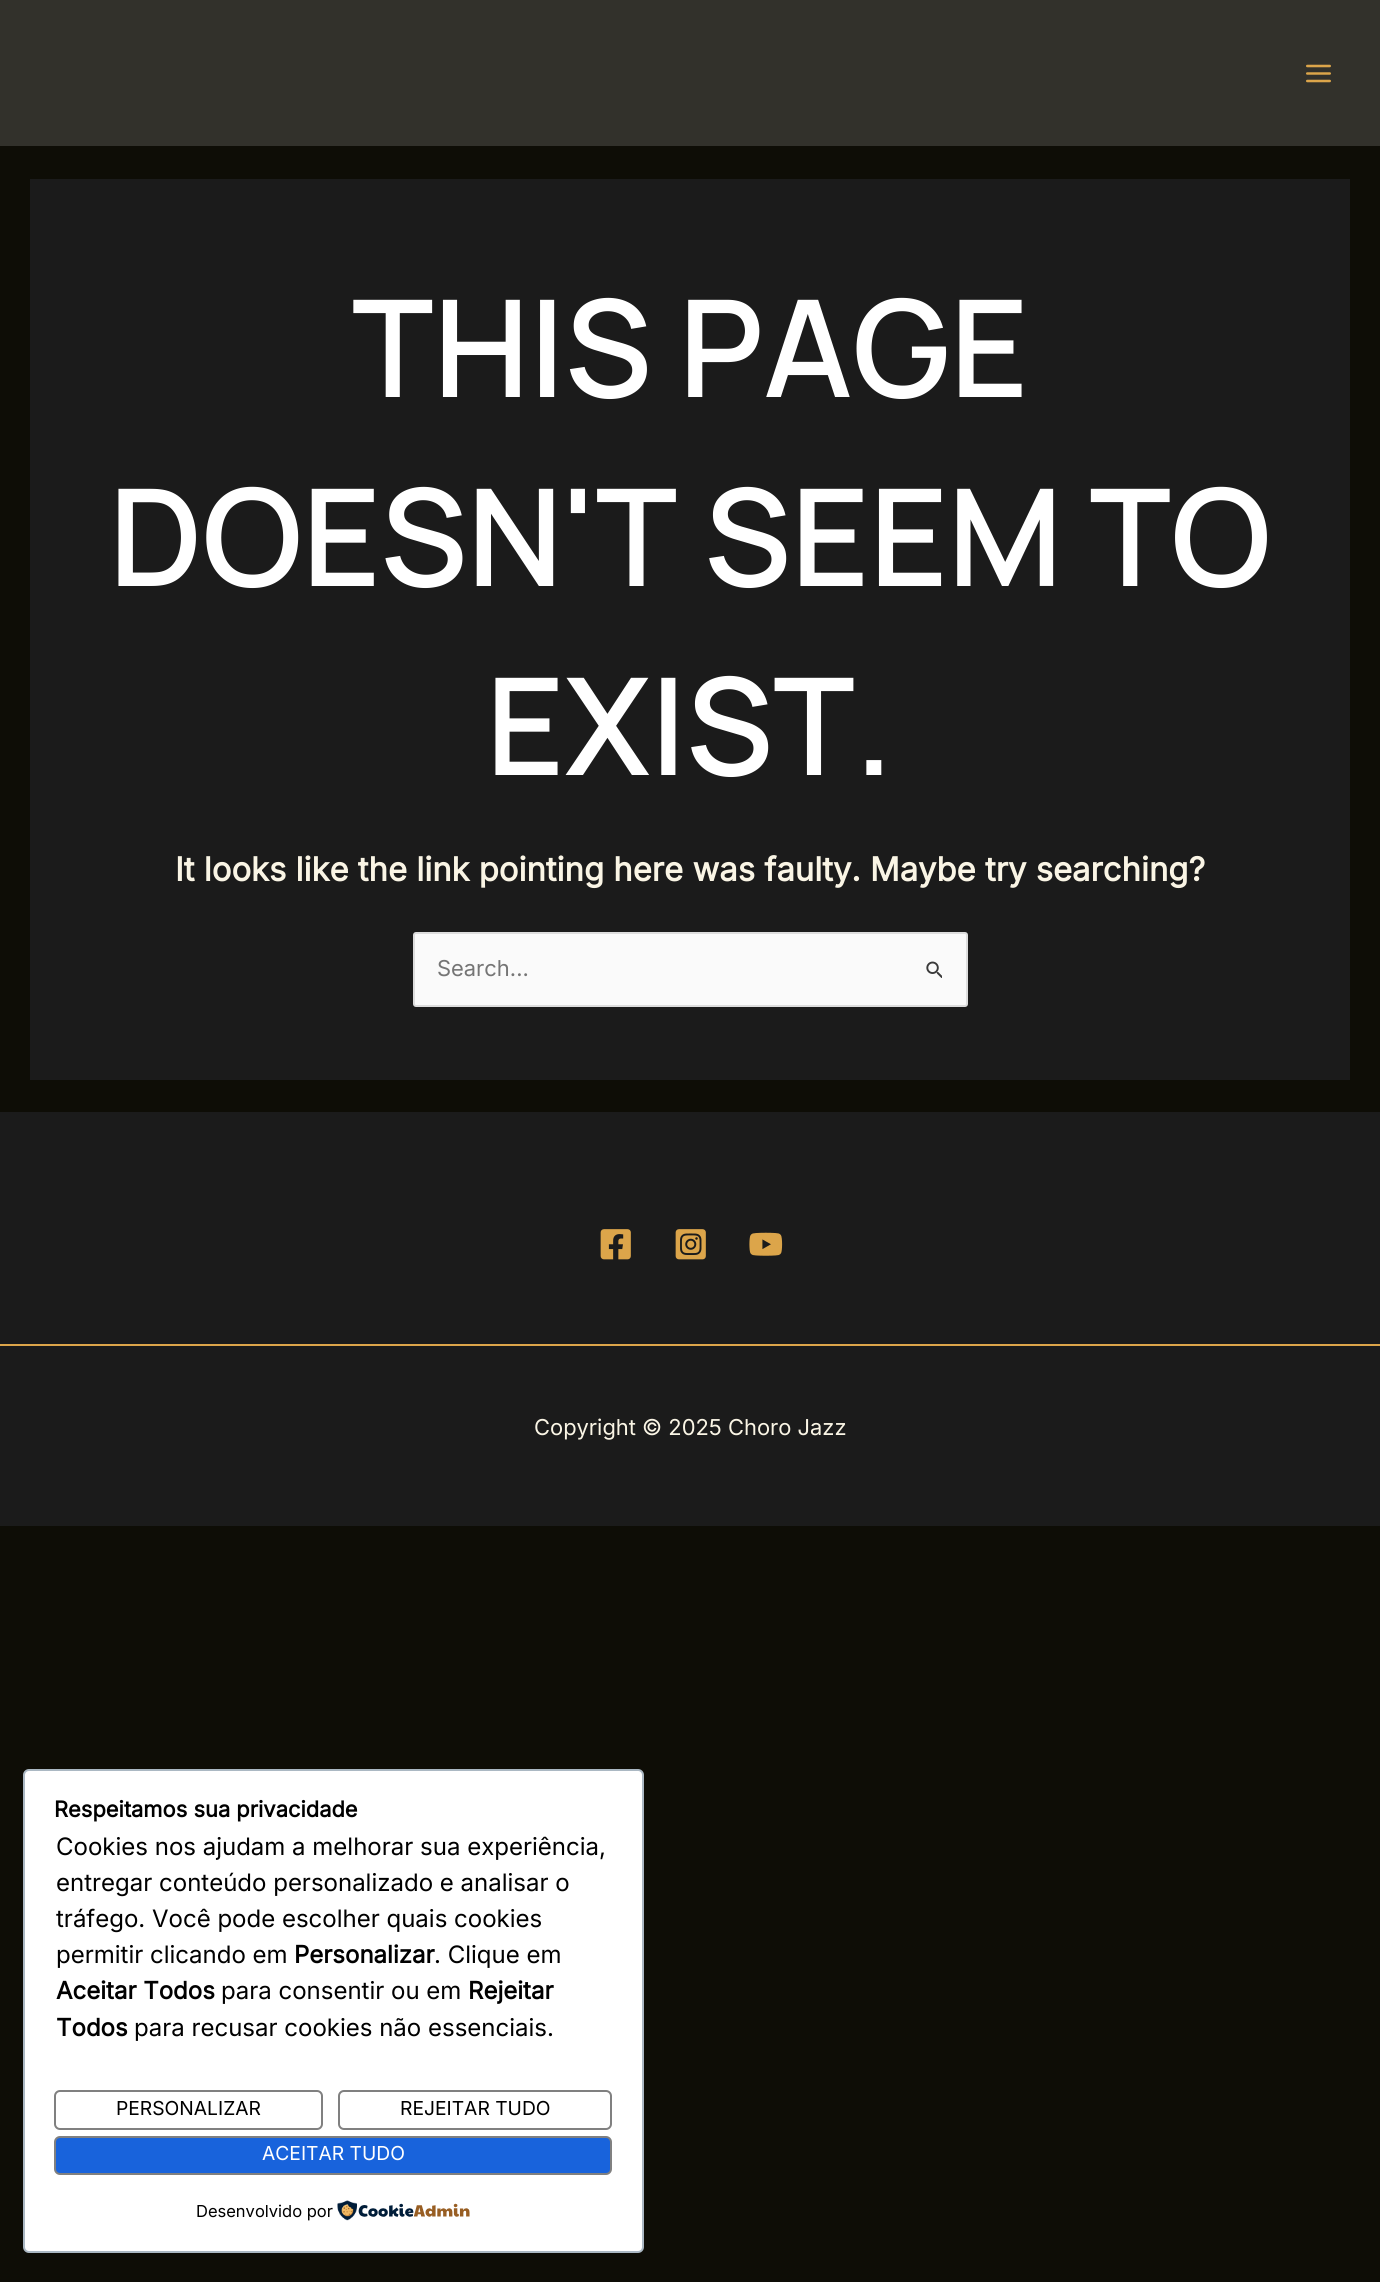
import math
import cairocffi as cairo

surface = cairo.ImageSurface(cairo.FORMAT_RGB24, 1380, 2282)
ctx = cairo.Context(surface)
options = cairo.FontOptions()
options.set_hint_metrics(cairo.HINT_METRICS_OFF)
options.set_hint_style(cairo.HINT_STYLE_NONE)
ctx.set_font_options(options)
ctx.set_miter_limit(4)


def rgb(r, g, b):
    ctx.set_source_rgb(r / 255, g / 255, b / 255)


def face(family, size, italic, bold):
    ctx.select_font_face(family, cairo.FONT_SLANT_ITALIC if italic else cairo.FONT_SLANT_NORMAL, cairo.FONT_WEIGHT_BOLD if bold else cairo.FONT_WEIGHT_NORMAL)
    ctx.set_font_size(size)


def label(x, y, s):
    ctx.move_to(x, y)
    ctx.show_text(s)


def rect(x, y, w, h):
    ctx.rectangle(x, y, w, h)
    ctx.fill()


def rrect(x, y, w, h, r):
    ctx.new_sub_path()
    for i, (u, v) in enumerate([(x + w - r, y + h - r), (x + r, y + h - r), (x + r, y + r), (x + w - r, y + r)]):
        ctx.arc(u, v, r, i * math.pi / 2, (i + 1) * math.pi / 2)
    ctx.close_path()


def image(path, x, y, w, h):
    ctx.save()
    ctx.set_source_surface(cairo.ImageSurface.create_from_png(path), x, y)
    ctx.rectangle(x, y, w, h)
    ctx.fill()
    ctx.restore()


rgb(14, 13, 6)
ctx.paint()
rgb(50, 49, 43)
rect(0, 0, 1380, 146)
image('image0.png', 1306, 64, 25, 19)
rgb(27, 27, 27)
rect(30, 179, 1320, 901)
face('Manrope ExtraLight', 135, 0, 0)
rgb(255, 255, 255)
label(352, 397, 'THIS PAGE')
label(109, 586, 'DOESN\'T SEEM TO')
label(486, 775, 'EXIST.')
face('Inter', 32.8, 0, 1)
rgb(250, 245, 229)
label(175, 881, 'It looks like the link pointing here was faulty. Maybe try searching?')
rgb(250, 250, 250)
rrect(414, 933, 553, 73, 2)
ctx.fill_preserve()
rgb(221, 221, 221)
ctx.stroke()
face('Inter', 21.9, 0, 0)
rgb(117, 117, 117)
label(437, 976, 'Search...')
image('image1.png', 926, 961, 16, 17)
rgb(27, 27, 27)
rect(0, 1112, 1380, 232)
image('image2.png', 600, 1229, 31, 31)
image('image3.png', 675, 1229, 31, 31)
image('image4.png', 749, 1232, 34, 24)
rect(0, 1346, 1380, 180)
rgb(220, 165, 74)
rect(0, 1344, 1380, 2)
rgb(250, 245, 229)
label(534, 1435, 'Copyright © 2025 Choro Jazz')
rgb(255, 255, 255)
rrect(24, 1770, 619, 482, 5)
ctx.fill_preserve()
rgb(171, 184, 195)
ctx.stroke()
face('Inter', 21.9, 0, 1)
rgb(0, 0, 0)
label(54, 1817, 'Respeitamos sua privacidade')
face('Inter', 24, 0, 0)
label(56, 1855, 'Cookies nos ajudam a melhorar sua experiência,')
label(56, 1891, 'entregar conteúdo personalizado e analisar o')
label(56, 1927, 'tráfego. Você pode escolher quais cookies')
label(56, 1963, 'permitir clicando em')
face('Inter', 24, 0, 1)
label(294, 1963, 'Personalizar')
face('Inter', 24, 0, 0)
label(434, 1963, '. Clique em')
face('Inter', 24, 0, 1)
label(56, 1999, 'Aceitar Todos')
face('Inter', 24, 0, 0)
label(221, 1999, 'para consentir ou em')
face('Inter', 24, 0, 1)
label(468, 1999, 'Rejeitar')
label(56, 2036, 'Todos')
face('Inter', 24, 0, 0)
label(134, 2036, 'para recusar cookies não essenciais.')
rrect(55, 2091, 267, 38, 5)
rgb(128, 128, 128)
ctx.stroke()
face('Inter', 19.25, 0, 0)
rgb(0, 0, 0)
label(116, 2115, 'PERSONALIZAR')
rrect(339, 2091, 272, 38, 5)
rgb(128, 128, 128)
ctx.stroke()
rgb(0, 0, 0)
label(400, 2115, 'REJEITAR TUDO')
rgb(24, 99, 220)
rrect(55, 2137, 556, 37, 5)
ctx.fill_preserve()
rgb(128, 128, 128)
ctx.stroke()
rgb(255, 255, 255)
label(262, 2160, 'ACEITAR TUDO')
face('Inter', 16.5, 0, 0)
rgb(0, 0, 0)
label(196, 2217, 'Desenvolvido por')
image('image5.png', 337, 2200, 133, 21)
surface.write_to_png('render.png')
